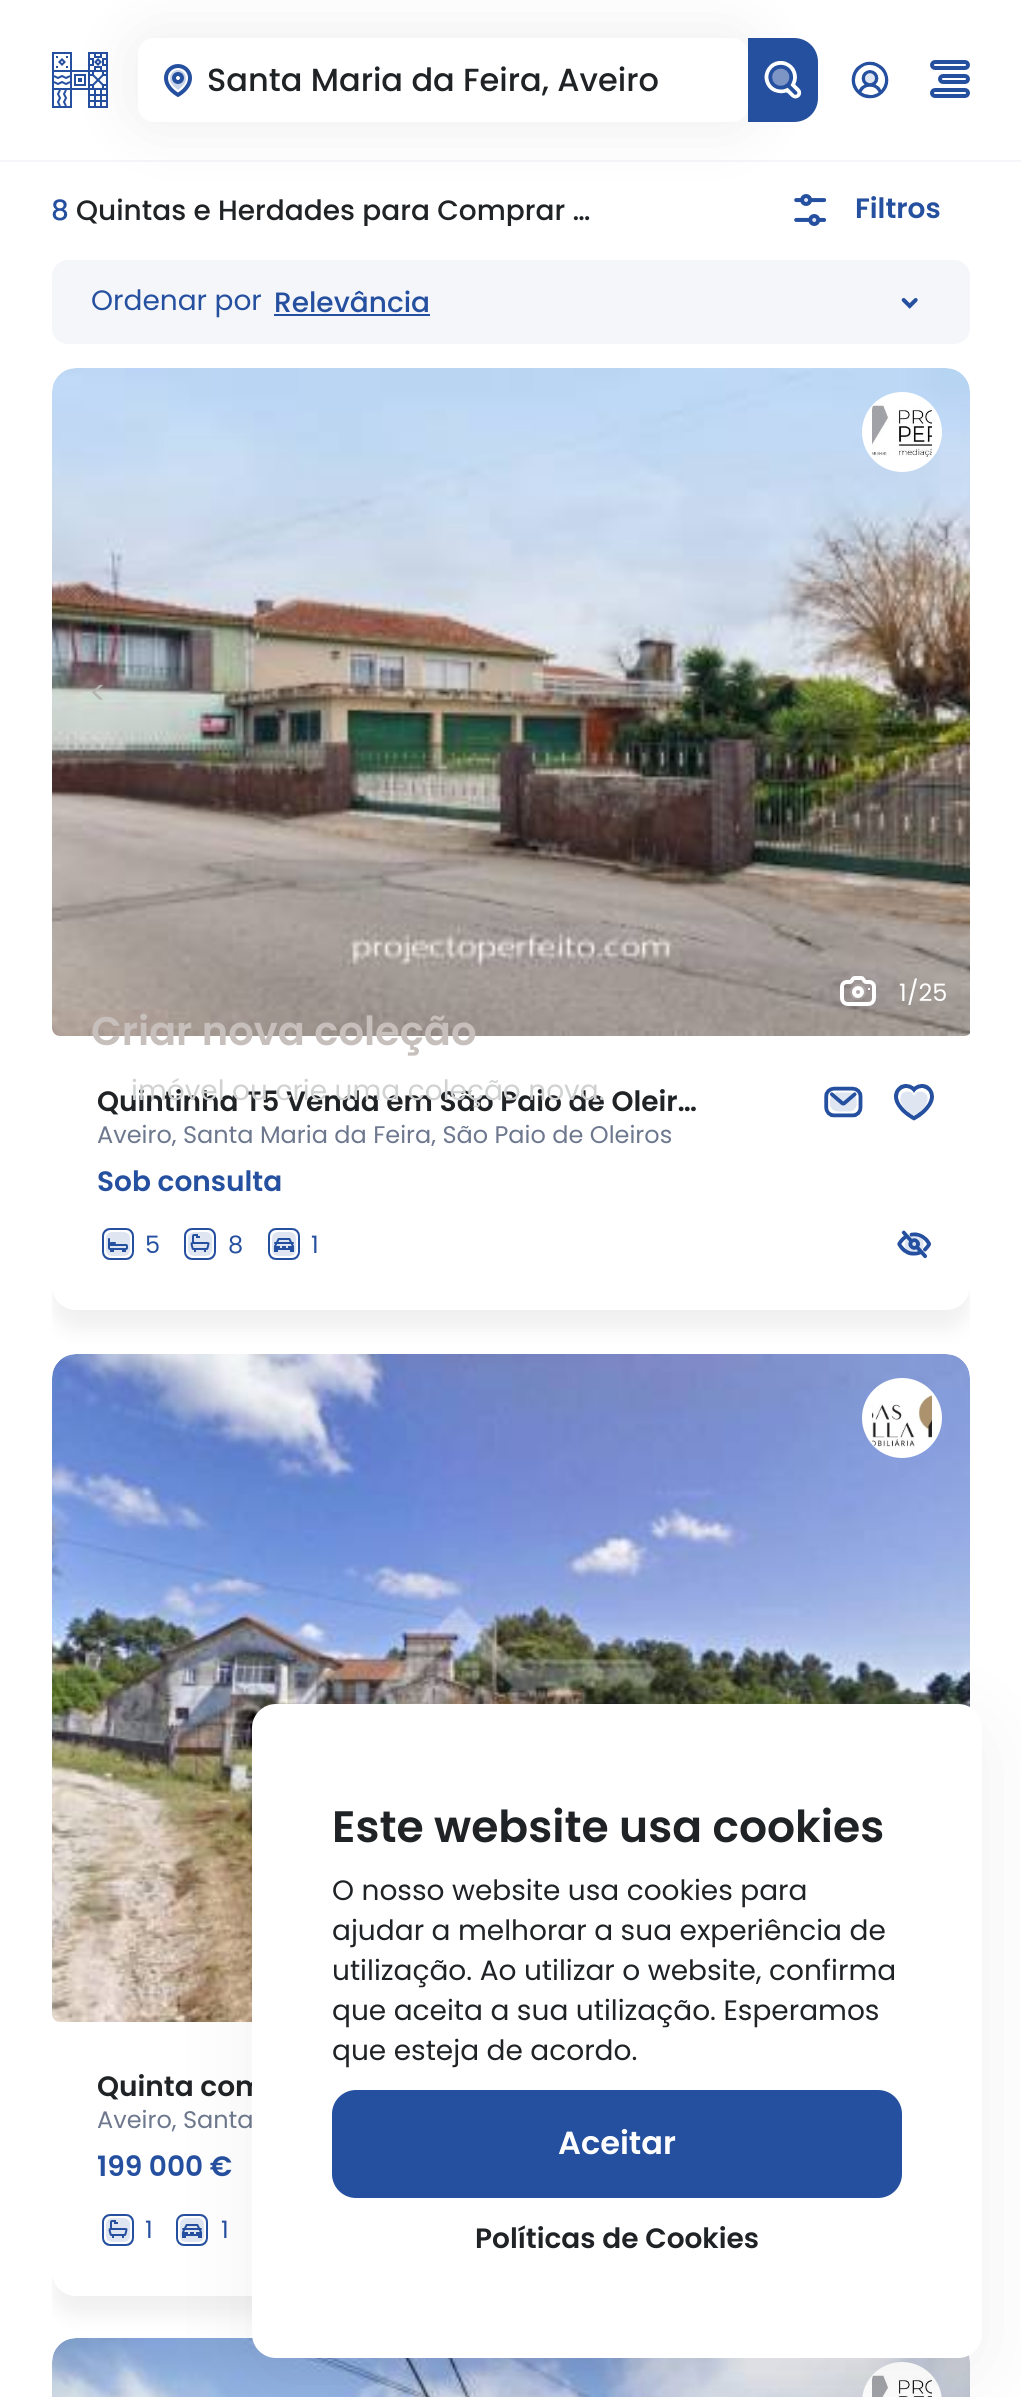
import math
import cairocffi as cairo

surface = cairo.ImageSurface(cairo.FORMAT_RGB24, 1021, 2397)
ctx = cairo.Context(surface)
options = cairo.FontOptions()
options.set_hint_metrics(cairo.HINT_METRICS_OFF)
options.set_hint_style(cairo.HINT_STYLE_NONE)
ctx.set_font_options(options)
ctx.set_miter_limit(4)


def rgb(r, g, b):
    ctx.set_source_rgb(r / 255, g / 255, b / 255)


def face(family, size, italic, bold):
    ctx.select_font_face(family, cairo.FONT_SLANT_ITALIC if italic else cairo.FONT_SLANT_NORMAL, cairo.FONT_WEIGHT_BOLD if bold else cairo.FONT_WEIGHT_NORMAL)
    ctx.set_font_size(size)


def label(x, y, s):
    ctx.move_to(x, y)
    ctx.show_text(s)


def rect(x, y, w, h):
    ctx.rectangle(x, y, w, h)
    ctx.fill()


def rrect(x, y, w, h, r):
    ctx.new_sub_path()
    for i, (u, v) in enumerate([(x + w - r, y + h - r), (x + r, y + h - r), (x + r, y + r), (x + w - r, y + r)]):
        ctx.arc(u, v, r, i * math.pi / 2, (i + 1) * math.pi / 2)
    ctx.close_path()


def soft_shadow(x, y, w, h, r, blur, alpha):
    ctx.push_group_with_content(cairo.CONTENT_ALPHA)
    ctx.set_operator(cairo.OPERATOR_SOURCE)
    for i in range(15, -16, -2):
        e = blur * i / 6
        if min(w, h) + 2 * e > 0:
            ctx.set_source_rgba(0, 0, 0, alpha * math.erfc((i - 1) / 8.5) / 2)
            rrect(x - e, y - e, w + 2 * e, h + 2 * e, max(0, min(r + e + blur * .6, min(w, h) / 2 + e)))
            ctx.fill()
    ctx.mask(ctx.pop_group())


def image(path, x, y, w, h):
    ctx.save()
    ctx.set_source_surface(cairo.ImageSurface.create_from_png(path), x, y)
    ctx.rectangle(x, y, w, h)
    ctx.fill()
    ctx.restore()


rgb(255, 255, 255)
ctx.paint()
rgb(244, 246, 250)
rect(0, 160, 1021, 2)
image('image0.png', 52, 52, 56, 56)
image('image4.png', 794, 194, 33, 32)
rgb(0, 0, 0)
soft_shadow(128, 28, 630, 104, 26, 32, 0.06)
rgb(255, 255, 255)
rrect(138, 38, 610, 84, 16)
ctx.fill()
image('image1.png', 164, 64, 28, 33)
face('Poppins Medium', 32, 0, 0)
rgb(32, 35, 38)
label(207, 91, 'Santa Maria da Feira, Aveiro')
rgb(37, 79, 159)
ctx.new_path()
ctx.move_to(748, 38)
ctx.line_to(794, 38)
ctx.curve_to(807.5, 38, 818, 48.5, 818, 62)
ctx.line_to(818, 98)
ctx.curve_to(818, 111.5, 807.5, 122, 794, 122)
ctx.line_to(748, 122)
ctx.close_path()
ctx.fill()
image('image2.png', 764, 61, 38, 38)
image('image3.png', 851, 61, 38, 38)
rrect(932, 62, 36, 6, 3)
ctx.set_line_width(4)
ctx.stroke()
rrect(940, 76, 28, 6, 3)
ctx.stroke()
rrect(932, 90, 36, 6, 3)
ctx.stroke()
face('Poppins Medium', 28, 0, 0)
label(51, 220, '8')
ctx.save()
ctx.rectangle(52, 194, 550, 32)
ctx.clip()
rgb(32, 35, 38)
label(76, 220, 'Quintas e Herdades para Comprar …')
ctx.restore()
face('Poppins SemiBold', 28, 0, 0)
label(855, 218, 'Filtros')
rgb(244, 246, 250)
rrect(52, 260, 918, 84, 16)
ctx.fill()
face('Poppins', 28, 0, 0)
rgb(37, 79, 159)
label(91, 310, 'Ordenar por')
face('Poppins Medium', 28, 0, 0)
label(274, 312, 'Relevância')
rect(274, 314, 156, 2)
image('image5.png', 901, 298, 17, 11)
ctx.save()
ctx.rectangle(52, 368, 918, 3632)
ctx.clip()
rgb(0, 0, 0)
soft_shadow(52, 388, 918, 942, 24, 10, 0.06)
ctx.restore()
rgb(255, 255, 255)
rrect(52, 368, 918, 942, 24)
ctx.fill()
image('image6.png', 52, 368, 918, 668)
ctx.arc(902, 432, 40, 0, 2 * math.pi)
ctx.fill()
image('image7.png', 872, 403, 60, 57)
face('Poppins', 32, 0, 0)
rgb(180, 180, 175)
label(89, 704, '<')
image('image8.png', 840, 976, 36, 30)
face('Poppins', 24, 0, 0)
rgb(255, 255, 255)
label(899, 1001, '1')
label(907, 1001, '/25')
face('Poppins SemiBold', 28, 0, 0)
rgb(32, 35, 38)
label(97, 1111, 'Quintinha T5 Venda em São Paio de Oleir…')
ctx.save()
ctx.rectangle(98, 1122, 610, 24)
ctx.clip()
face('Poppins', 24, 0, 0)
rgb(109, 120, 142)
label(97, 1143, 'Aveiro, Santa Maria da Feira, São Paio de Oleiros')
ctx.restore()
image('image9.png', 824, 1086, 39, 32)
image('image10.png', 894, 1084, 40, 37)
rgb(37, 79, 159)
label(97, 1191, 'Sob consulta')
image('image11.png', 102, 1228, 32, 32)
face('Poppins', 24, 0, 0)
label(145, 1253, '5')
image('image12.png', 184, 1228, 32, 32)
label(228, 1253, '8')
image('image13.png', 268, 1228, 32, 32)
label(311, 1253, '1')
image('image14.png', 897, 1230, 34, 29)
ctx.save()
ctx.rectangle(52, 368, 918, 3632)
ctx.clip()
rgb(0, 0, 0)
soft_shadow(52, 1374, 918, 942, 24, 10, 0.06)
ctx.restore()
rgb(255, 255, 255)
rrect(52, 1354, 918, 942, 24)
ctx.fill()
image('image15.png', 52, 1354, 918, 668)
ctx.arc(902, 1418, 40, 0, 2 * math.pi)
ctx.fill()
image('image16.png', 872, 1395, 60, 53)
face('Poppins SemiBold', 28, 0, 0)
rgb(32, 35, 38)
label(97, 2096, 'Quinta com')
face('Poppins', 24, 0, 0)
rgb(109, 120, 142)
label(97, 2128, 'Aveiro, Santa')
face('Poppins SemiBold', 28, 0, 0)
rgb(37, 79, 159)
label(97, 2176, '199 000 €')
image('image12.png', 102, 2214, 32, 32)
face('Poppins', 24, 0, 0)
label(145, 2238, '1')
image('image17.png', 176, 2214, 32, 32)
label(221, 2238, '1')
image('image18.png', 52, 2338, 918, 59)
rgb(255, 255, 255)
rrect(862, 2362, 80, 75, 40)
ctx.fill()
image('image19.png', 872, 2373, 60, 24)
rgb(0, 0, 0)
soft_shadow(372, 2278, 278, 104, 24, 34, 0.07)
face('Poppins SemiBold', 40, 0, 0)
rgb(198, 191, 187)
label(91, 1045, 'Criar nova coleção')
face('Poppins', 28, 0, 0)
rgb(208, 209, 209)
label(131, 1100, 'imóvel ou crie uma coleção nova.')
rgb(0, 0, 0)
soft_shadow(252, 1724, 730, 654, 24, 44, 0.06)
rgb(255, 255, 255)
rrect(252, 1704, 730, 654, 24)
ctx.fill()
face('Poppins SemiBold', 44, 0, 0)
rgb(32, 35, 38)
label(332, 1842, 'Este website usa cookies')
face('Poppins', 28, 0, 0)
label(332, 1900, 'O nosso website usa cookies para')
label(332, 1940, 'ajudar a melhorar a sua experiência de')
label(332, 1980, 'utilização. Ao utilizar o website, confirma')
label(332, 2020, 'que aceita a sua utilização. Esperamos')
label(332, 2060, 'que esteja de acordo.')
rgb(37, 79, 159)
rrect(332, 2090, 570, 108, 24)
ctx.fill()
face('Poppins SemiBold', 32, 0, 0)
rgb(255, 255, 255)
label(558, 2154, 'Aceitar')
face('Poppins SemiBold', 28, 0, 0)
rgb(32, 35, 38)
label(475, 2248, 'Políticas de Cookies')
surface.write_to_png('render.png')
